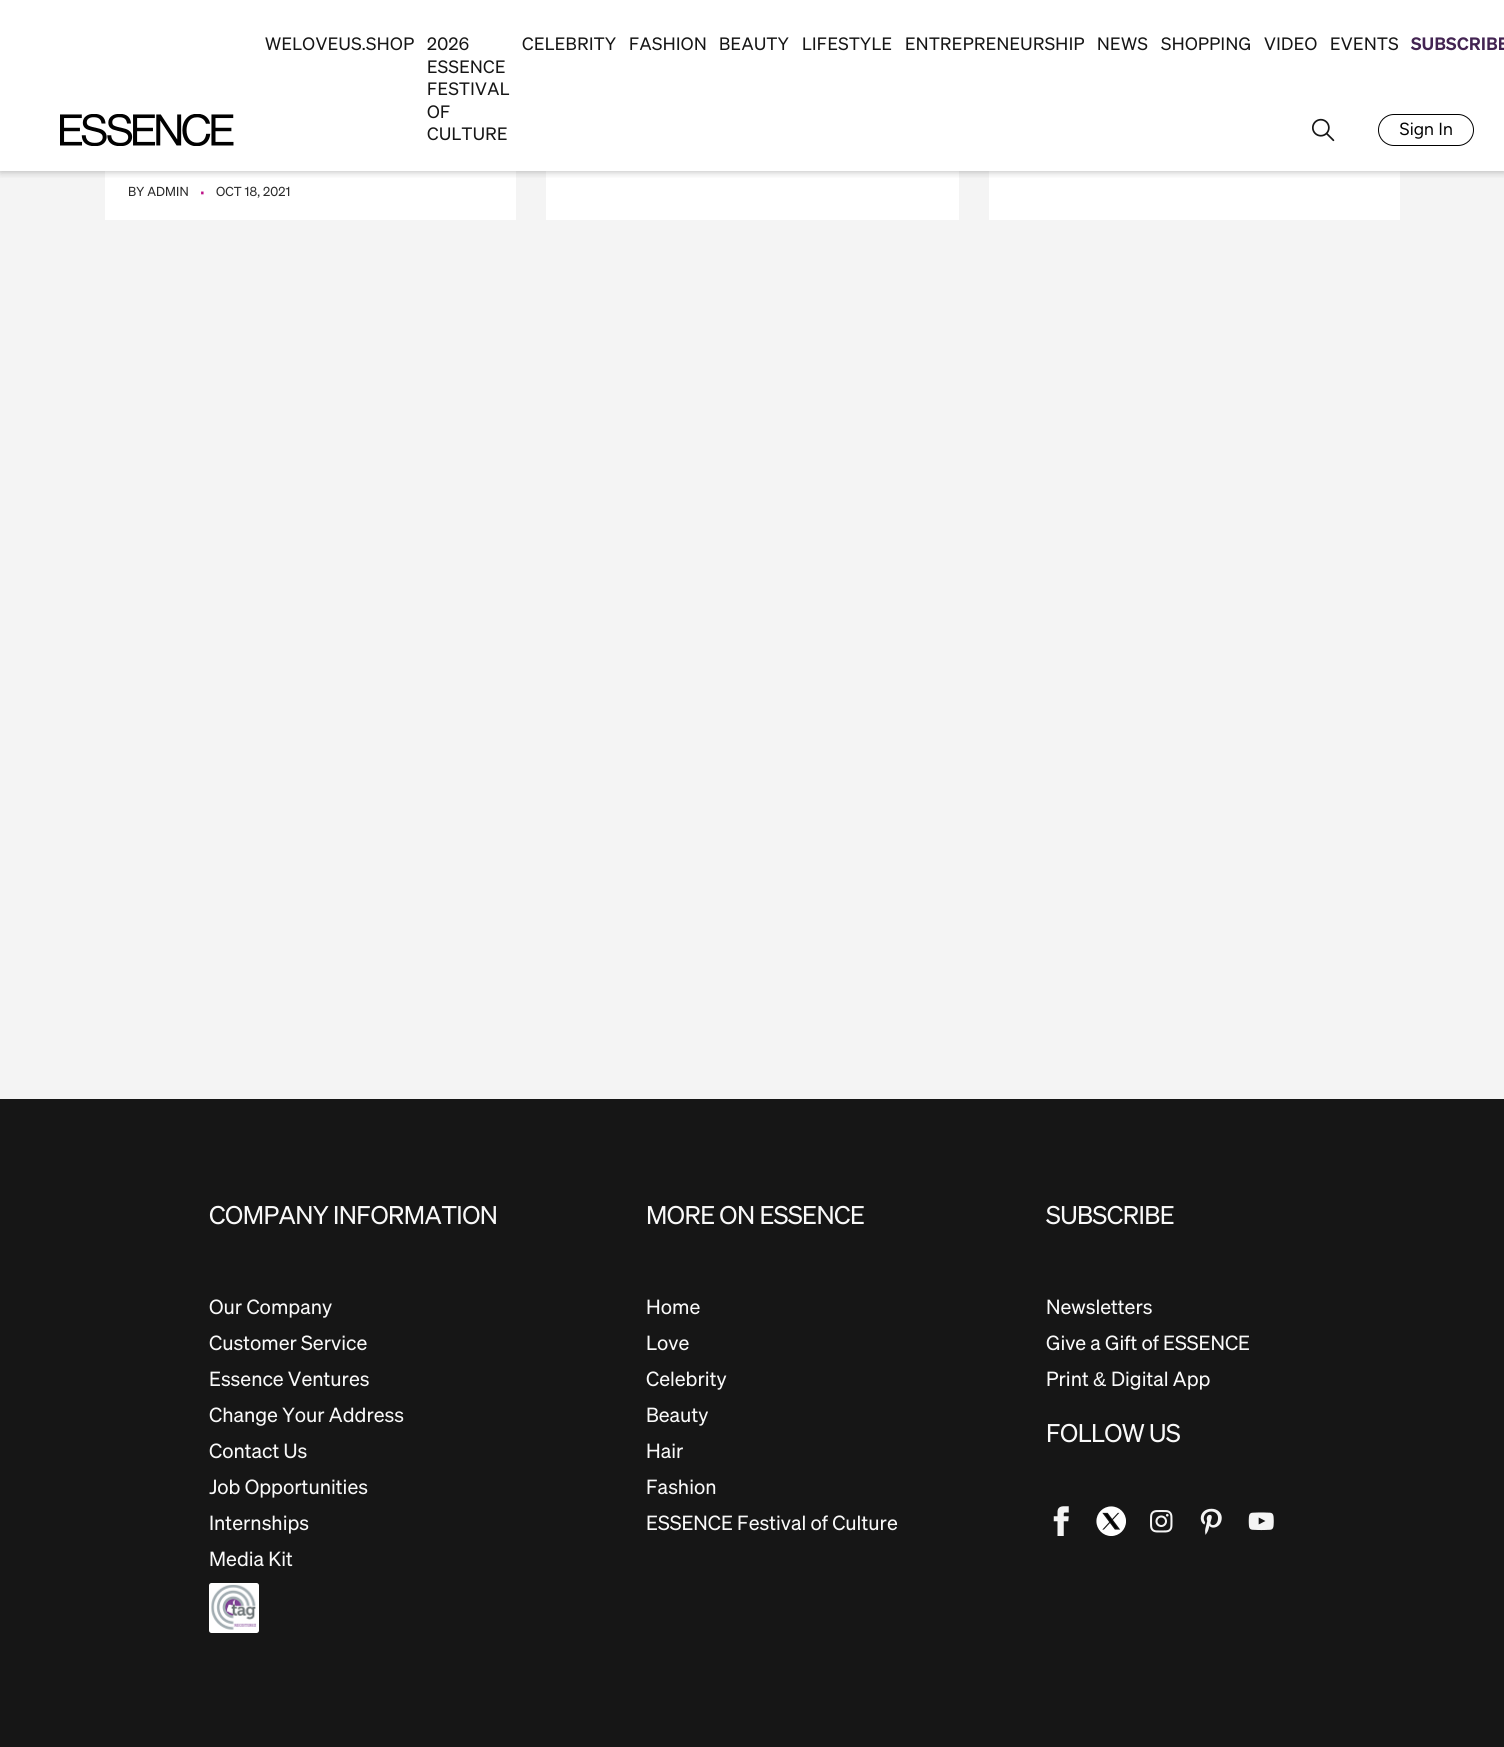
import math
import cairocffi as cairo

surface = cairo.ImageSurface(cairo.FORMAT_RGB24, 1504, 1747)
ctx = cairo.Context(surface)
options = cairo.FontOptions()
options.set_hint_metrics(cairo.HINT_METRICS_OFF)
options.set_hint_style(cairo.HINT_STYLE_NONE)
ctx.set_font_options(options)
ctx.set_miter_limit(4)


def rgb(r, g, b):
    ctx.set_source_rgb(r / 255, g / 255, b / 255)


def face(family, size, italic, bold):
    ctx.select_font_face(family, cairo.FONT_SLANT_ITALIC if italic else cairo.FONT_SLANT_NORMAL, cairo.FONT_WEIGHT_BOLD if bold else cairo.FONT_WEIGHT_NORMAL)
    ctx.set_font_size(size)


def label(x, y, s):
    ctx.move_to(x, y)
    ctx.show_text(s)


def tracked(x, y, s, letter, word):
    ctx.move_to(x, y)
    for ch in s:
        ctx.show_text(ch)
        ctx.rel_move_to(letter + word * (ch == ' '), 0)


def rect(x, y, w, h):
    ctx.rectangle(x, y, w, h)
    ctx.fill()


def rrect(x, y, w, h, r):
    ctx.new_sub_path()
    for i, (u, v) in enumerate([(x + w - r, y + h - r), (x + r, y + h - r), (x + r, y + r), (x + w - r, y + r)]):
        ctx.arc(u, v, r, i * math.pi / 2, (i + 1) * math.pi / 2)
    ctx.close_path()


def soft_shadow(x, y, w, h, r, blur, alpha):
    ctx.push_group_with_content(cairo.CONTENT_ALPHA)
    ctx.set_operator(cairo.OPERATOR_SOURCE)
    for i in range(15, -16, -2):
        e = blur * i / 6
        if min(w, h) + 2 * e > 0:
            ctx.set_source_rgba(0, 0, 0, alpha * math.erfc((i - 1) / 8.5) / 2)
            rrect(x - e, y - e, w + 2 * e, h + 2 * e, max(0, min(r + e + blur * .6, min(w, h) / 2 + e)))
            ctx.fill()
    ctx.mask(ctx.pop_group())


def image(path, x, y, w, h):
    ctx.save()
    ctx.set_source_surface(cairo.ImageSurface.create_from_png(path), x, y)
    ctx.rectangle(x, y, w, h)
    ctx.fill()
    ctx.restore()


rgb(244, 244, 244)
ctx.paint()
rgb(255, 255, 255)
rect(105, 171, 411, 49)
rect(546, 171, 413, 49)
rect(989, 171, 411, 49)
rgb(0, 0, 0)
soft_shadow(0, 0, 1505, 171, 0, 3, 0.16)
rgb(255, 255, 255)
rect(0, 0, 1504, 171)
ctx.save()
ctx.rectangle(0, 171, 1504, 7)
ctx.clip()
rgb(0, 0, 0)
soft_shadow(0, 1, 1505, 172, 0, 5, 0.12)
ctx.restore()
face('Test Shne', 17.5, 0, 0)
rgb(22, 22, 22)
tracked(265, 50, 'WELOVEUS.SHOP', 0.4, 0)
tracked(427, 50, '2026', 0.4, 0)
tracked(427, 73, 'ESSENCE', 0.4, 0)
tracked(427, 95, 'FESTIVAL', 0.4, 0)
tracked(427, 118, 'OF', 0.4, 0)
tracked(427, 140, 'CULTURE', 0.4, 0)
tracked(522, 50, 'CELEBRITY', 0.4, 0)
tracked(629, 50, 'FASHION', 0.4, 0)
tracked(719, 50, 'BEAUTY', 0.4, 0)
tracked(802, 50, 'LIFESTYLE', 0.4, 0)
tracked(905, 50, 'ENTREPRENEURSHIP', 0.4, 0)
tracked(1097, 50, 'NEWS', 0.4, 0)
tracked(1161, 50, 'SHOPPING', 0.4, 0)
tracked(1264, 50, 'VIDEO', 0.4, 0)
tracked(1330, 50, 'EVENTS', 0.4, 0)
face('Test Shne SemiBold', 17.5, 0, 0)
rgb(67, 36, 82)
tracked(1411, 50, 'SUBSCRIBE', 0.4, 0)
image('image0.png', 60, 114, 174, 32)
image('image1.png', 1312, 118, 23, 24)
rrect(1378.5, 114.5, 95, 31, 15.5)
rgb(0, 0, 0)
ctx.set_line_width(1)
ctx.stroke()
face('Figtree', 17.5, 0, 0)
label(1399, 135, 'Sign In')
face('Test Shne', 12.75, 0, 0)
rgb(43, 43, 43)
tracked(128, 196, 'BY ADMIN', 0.1, 0)
face('Liberation Sans', 26, 0, 0)
rgb(189, 17, 135)
tracked(198, 200, '·', 0.1, 0)
face('Test Shne', 12.75, 0, 0)
rgb(43, 43, 43)
tracked(216, 196, 'OCT 18, 2021', 0.1, 0)
rgb(22, 22, 22)
rect(0, 1099, 1504, 648)
face('Test Shne', 25, 0, 0)
rgb(249, 249, 249)
tracked(209, 1224, 'COMPANY INFORMATION', -0.5, 0)
face('Test Shne', 20, 0, 0)
label(209, 1314, 'Our Company')
label(209, 1350, 'Customer Service')
label(209, 1386, 'Essence Ventures')
label(209, 1422, 'Change Your Address')
label(209, 1458, 'Contact Us')
label(209, 1494, 'Job Opportunities')
label(209, 1530, 'Internships')
label(209, 1566, 'Media Kit')
rgb(255, 255, 255)
rrect(209, 1583, 50, 50, 2.5)
ctx.fill()
image('image2.png', 211, 1584, 46, 46)
face('Test Shne', 25, 0, 0)
rgb(249, 249, 249)
tracked(646, 1224, 'MORE ON ESSENCE', -0.5, 0)
face('Test Shne', 20, 0, 0)
label(646, 1314, 'Home')
label(646, 1350, 'Love')
label(646, 1386, 'Celebrity')
label(646, 1422, 'Beauty')
label(646, 1458, 'Hair')
label(646, 1494, 'Fashion')
label(646, 1530, 'ESSENCE Festival of Culture')
face('Test Shne', 25, 0, 0)
tracked(1046, 1224, 'SUBSCRIBE', -0.5, 0)
face('Test Shne', 20, 0, 0)
label(1046, 1314, 'Newsletters')
label(1046, 1350, 'Give a Gift of ESSENCE')
label(1046, 1386, 'Print')
face('Liberation Sans', 20, 0, 0)
label(1093, 1386, '&')
face('Test Shne', 20, 0, 0)
label(1111, 1386, 'Digital App')
face('Test Shne', 25, 0, 0)
tracked(1046, 1442, 'FOLLOW US', -0.5, 0)
image('image3.png', 1053, 1506, 16, 30)
image('image4.png', 1096, 1506, 30, 30)
image('image5.png', 1150, 1510, 23, 23)
image('image6.png', 1200, 1508, 22, 27)
image('image7.png', 1248, 1512, 26, 19)
surface.write_to_png('render.png')
